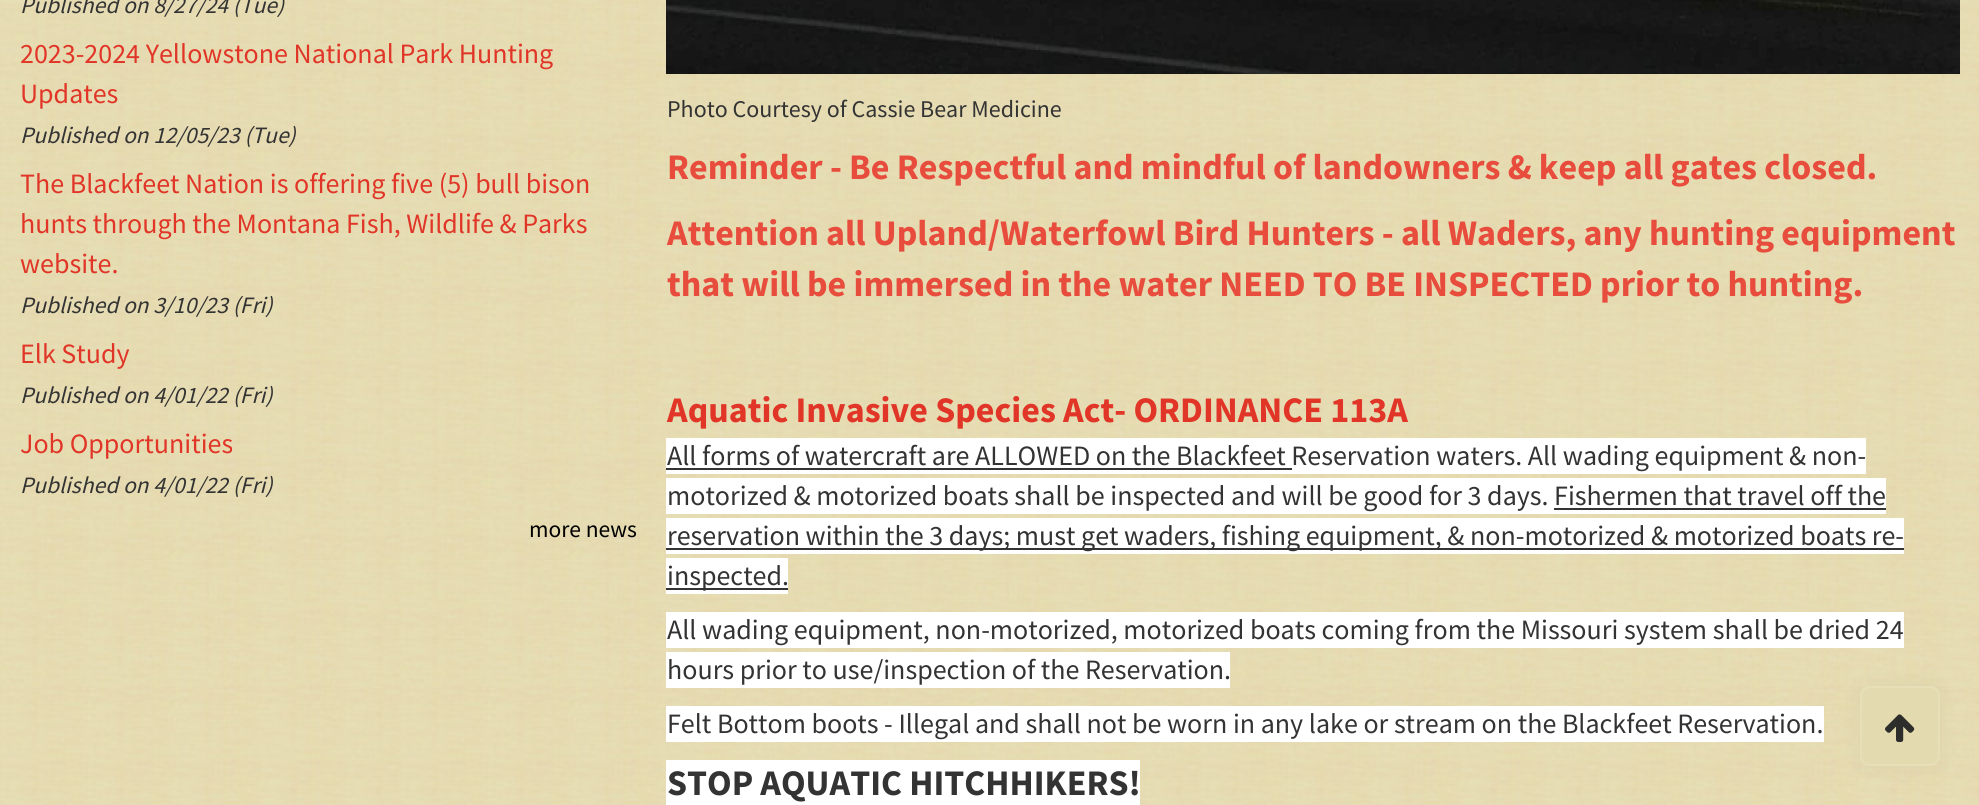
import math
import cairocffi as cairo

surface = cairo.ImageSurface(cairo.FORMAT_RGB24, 1979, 805)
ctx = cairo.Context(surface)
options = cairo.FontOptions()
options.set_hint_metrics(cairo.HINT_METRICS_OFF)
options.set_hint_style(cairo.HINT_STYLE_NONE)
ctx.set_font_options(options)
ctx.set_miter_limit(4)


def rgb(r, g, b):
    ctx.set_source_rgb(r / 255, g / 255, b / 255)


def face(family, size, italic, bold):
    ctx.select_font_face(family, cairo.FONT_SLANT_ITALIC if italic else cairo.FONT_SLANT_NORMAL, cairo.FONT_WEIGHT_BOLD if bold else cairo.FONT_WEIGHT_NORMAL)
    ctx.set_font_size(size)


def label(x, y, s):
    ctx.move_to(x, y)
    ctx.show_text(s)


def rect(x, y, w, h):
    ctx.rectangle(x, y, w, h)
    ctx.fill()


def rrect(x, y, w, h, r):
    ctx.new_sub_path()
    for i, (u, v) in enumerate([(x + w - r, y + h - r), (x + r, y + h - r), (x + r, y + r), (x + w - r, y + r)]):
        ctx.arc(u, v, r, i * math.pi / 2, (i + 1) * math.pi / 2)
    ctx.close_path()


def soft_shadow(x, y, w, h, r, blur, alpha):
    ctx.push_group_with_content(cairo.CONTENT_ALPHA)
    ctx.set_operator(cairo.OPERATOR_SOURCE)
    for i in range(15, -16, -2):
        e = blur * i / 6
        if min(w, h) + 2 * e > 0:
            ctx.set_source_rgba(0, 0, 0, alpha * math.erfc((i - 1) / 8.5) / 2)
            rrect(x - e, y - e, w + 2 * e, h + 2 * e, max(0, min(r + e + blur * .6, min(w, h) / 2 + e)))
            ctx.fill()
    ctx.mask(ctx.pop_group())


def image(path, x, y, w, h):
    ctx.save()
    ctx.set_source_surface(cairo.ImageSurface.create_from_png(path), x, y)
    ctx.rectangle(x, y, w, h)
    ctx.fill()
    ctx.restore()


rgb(255, 255, 255)
ctx.paint()
image('image0.png', 0, 0, 1979, 805)
face('Source Sans Pro', 23.5, 1, 0)
rgb(51, 51, 51)
label(20, 13, 'Published on 8/27/24 (Tue)')
face('Source Sans Pro', 28, 0, 0)
rgb(224, 53, 39)
label(20, 63, '2023-2024 Yellowstone National Park Hunting')
label(20, 103, 'Updates')
face('Source Sans Pro', 23.5, 1, 0)
rgb(51, 51, 51)
label(20, 143, 'Published on 12/05/23 (Tue)')
face('Source Sans Pro', 28, 0, 0)
rgb(224, 53, 39)
label(20, 193, 'The Blackfeet Nation is offering five (5) bull bison')
label(20, 233, 'hunts through the Montana Fish, Wildlife & Parks')
label(20, 273, 'website.')
face('Source Sans Pro', 23.5, 1, 0)
rgb(51, 51, 51)
label(20, 313, 'Published on 3/10/23 (Fri)')
face('Source Sans Pro', 28, 0, 0)
rgb(224, 53, 39)
label(20, 363, 'Elk Study')
face('Source Sans Pro', 23.5, 1, 0)
rgb(51, 51, 51)
label(20, 403, 'Published on 4/01/22 (Fri)')
face('Source Sans Pro', 28, 0, 0)
rgb(224, 53, 39)
label(20, 453, 'Job Opportunities')
face('Source Sans Pro', 23.5, 1, 0)
rgb(51, 51, 51)
label(20, 493, 'Published on 4/01/22 (Fri)')
face('Source Sans Pro', 23.5, 0, 0)
rgb(0, 0, 0)
label(529, 537, 'more news')
image('image1.png', 666, 0, 1294, 74)
face('Source Sans Pro', 24, 0, 0)
rgb(51, 51, 51)
label(667, 117, 'Photo Courtesy of Cassie Bear Medicine')
face('Source Sans Pro', 36, 0, 1)
rgb(231, 76, 60)
label(667, 179, 'Reminder - Be Respectful and mindful of landowners & keep all gates closed.')
label(667, 245, 'Attention all Upland/Waterfowl Bird Hunters - all Waders, any hunting equipment')
label(667, 296, 'that will be immersed in the water NEED TO BE INSPECTED prior to hunting.')
rgb(224, 53, 39)
label(667, 422, 'Aquatic Invasive Species Act- ORDINANCE 113A')
rgb(255, 255, 255)
rect(666, 438, 1200, 36)
rgb(51, 51, 51)
rect(666, 468, 626, 2)
face('Source Sans Pro', 28, 0, 0)
label(667, 465, 'All forms of watercraft are ALLOWED on the Blackfeet Reservation waters. All wading equipment & non-')
rgb(255, 255, 255)
rect(666, 478, 1220, 36)
rgb(51, 51, 51)
label(667, 505, 'motorized & motorized boats shall be inspected and will be good for 3 days. Fishermen that travel off the')
rect(1554, 508, 332, 2)
rgb(255, 255, 255)
rect(666, 518, 1238, 36)
rgb(51, 51, 51)
rect(666, 548, 1238, 2)
label(667, 545, 'reservation within the 3 days; must get waders, fishing equipment, & non-motorized & motorized boats re-')
rgb(255, 255, 255)
rect(666, 558, 122, 36)
rgb(51, 51, 51)
rect(666, 588, 122, 2)
label(667, 585, 'inspected.')
rgb(255, 255, 255)
rect(666, 612, 1238, 36)
rgb(51, 51, 51)
label(667, 639, 'All wading equipment, non-motorized, motorized boats coming from the Missouri system shall be dried 24')
rgb(255, 255, 255)
rect(666, 652, 564, 36)
rgb(51, 51, 51)
label(667, 679, 'hours prior to use/inspection of the Reservation.')
rgb(255, 255, 255)
rect(666, 706, 1158, 36)
rgb(51, 51, 51)
label(667, 733, 'Felt Bottom boots - Illegal and shall not be worn in any lake or stream on the Blackfeet Reservation.')
rgb(255, 255, 255)
rect(666, 760, 474, 45)
face('Source Sans Pro', 36, 0, 1)
rgb(51, 51, 51)
label(667, 795, 'STOP AQUATIC HITCHHIKERS!')
rgb(0, 0, 0)
soft_shadow(1860, 686, 80, 80, 10, 10, 0.05)
rgb(227, 218, 175)
rrect(1861, 687, 78, 78, 9)
ctx.fill_preserve()
rgb(231, 223, 184)
ctx.stroke()
image('image2.png', 1885, 714, 30, 28)
surface.write_to_png('render.png')
